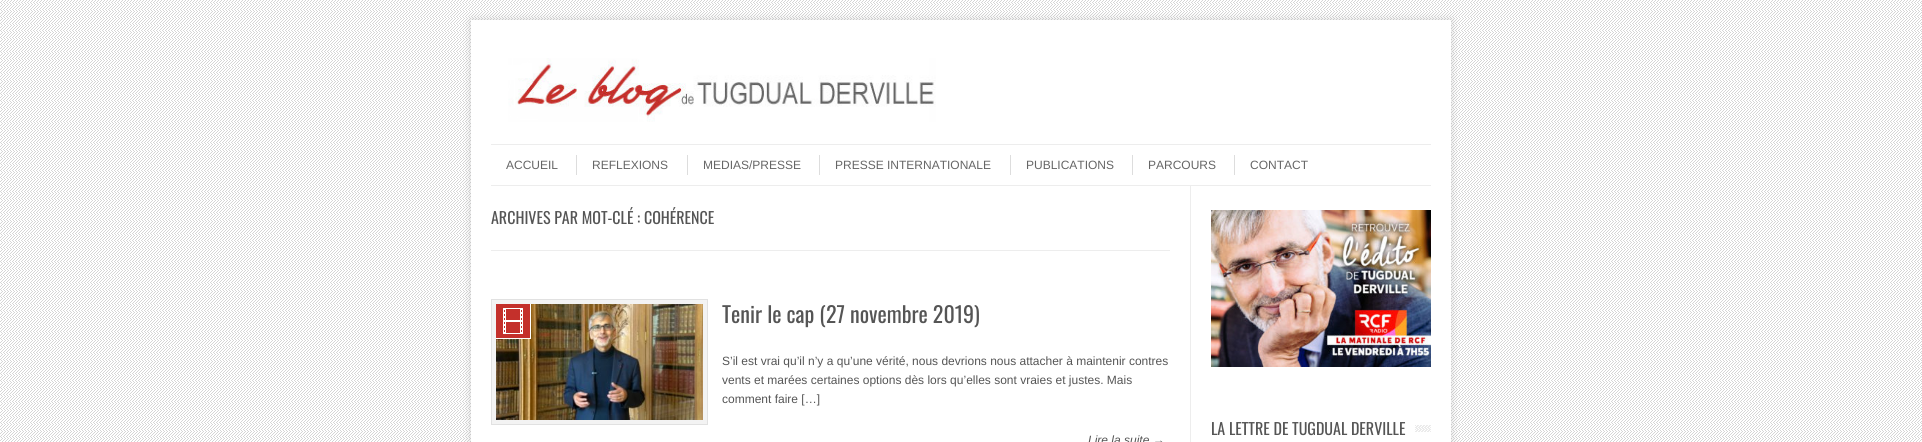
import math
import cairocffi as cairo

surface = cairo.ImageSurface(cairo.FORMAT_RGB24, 1922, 442)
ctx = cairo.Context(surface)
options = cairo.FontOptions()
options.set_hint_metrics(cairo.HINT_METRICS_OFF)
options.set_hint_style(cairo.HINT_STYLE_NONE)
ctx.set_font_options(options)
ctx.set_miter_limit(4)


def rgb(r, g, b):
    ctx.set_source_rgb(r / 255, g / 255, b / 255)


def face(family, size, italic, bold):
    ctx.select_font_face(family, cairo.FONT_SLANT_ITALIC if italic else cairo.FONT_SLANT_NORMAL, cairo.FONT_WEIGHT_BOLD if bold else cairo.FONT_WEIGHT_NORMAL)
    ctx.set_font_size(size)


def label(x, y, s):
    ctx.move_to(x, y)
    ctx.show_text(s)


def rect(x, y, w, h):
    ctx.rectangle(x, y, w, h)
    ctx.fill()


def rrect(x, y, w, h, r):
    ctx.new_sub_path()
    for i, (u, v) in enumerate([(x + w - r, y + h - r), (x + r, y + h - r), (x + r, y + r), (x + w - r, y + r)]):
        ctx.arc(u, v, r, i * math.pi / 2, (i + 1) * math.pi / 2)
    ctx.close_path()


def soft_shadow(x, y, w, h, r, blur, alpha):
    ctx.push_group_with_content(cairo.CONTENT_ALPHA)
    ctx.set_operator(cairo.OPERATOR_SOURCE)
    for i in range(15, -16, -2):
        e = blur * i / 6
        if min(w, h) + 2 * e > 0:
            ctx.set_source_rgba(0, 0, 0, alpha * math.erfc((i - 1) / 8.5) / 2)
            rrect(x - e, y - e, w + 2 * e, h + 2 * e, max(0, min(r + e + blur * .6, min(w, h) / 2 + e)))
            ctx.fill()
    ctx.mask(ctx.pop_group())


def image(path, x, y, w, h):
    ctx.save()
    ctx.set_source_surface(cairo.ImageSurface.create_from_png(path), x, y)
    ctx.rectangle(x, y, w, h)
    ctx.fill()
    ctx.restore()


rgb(255, 255, 255)
ctx.paint()
image('image0.png', 0, 0, 1922, 442)
rgb(150, 150, 150)
soft_shadow(471, 20, 980, 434, 0, 4, 0.4)
rgb(255, 255, 255)
rect(471, 20, 980, 422)
image('image1.png', 508, 58, 428, 64)
rgb(237, 237, 237)
rect(491, 144, 940, 1)
rect(491, 185, 940, 1)
face('Liberation Sans', 12, 0, 0)
rgb(102, 102, 102)
label(506, 169, 'ACCUEIL')
rgb(221, 221, 221)
rect(576, 155, 1, 20)
rgb(102, 102, 102)
label(592, 169, 'REFLEXIONS')
rgb(221, 221, 221)
rect(687, 155, 1, 20)
rgb(102, 102, 102)
label(703, 169, 'MEDIAS/PRESSE')
rgb(221, 221, 221)
rect(819, 155, 1, 20)
rgb(102, 102, 102)
label(835, 169, 'PRESSE INTERNATIONALE')
rgb(221, 221, 221)
rect(1010, 155, 1, 20)
rgb(102, 102, 102)
label(1026, 169, 'PUBLICATIONS')
rgb(221, 221, 221)
rect(1132, 155, 1, 20)
rgb(102, 102, 102)
label(1148, 169, 'PARCOURS')
rgb(221, 221, 221)
rect(1234, 155, 1, 20)
rgb(102, 102, 102)
label(1250, 169, 'CONTACT')
rgb(237, 237, 237)
rect(1190, 186, 1, 256)
rect(491, 250, 679, 1)
face('Oswald', 16, 0, 0)
rgb(85, 85, 85)
label(491, 224, 'ARCHIVES PAR MOT-CLÉ : COHÉRENCE')
rgb(243, 243, 243)
ctx.rectangle(491.5, 299.5, 216, 125)
ctx.fill_preserve()
rgb(225, 225, 225)
ctx.set_line_width(1)
ctx.stroke()
image('image2.png', 496, 304, 207, 116)
rgb(196, 48, 43)
rect(496, 304, 34, 34)
image('image3.png', 503, 308, 20, 26)
rgb(255, 255, 255)
rect(530, 304, 1, 35)
rect(496, 338, 35, 1)
face('Oswald', 22, 0, 0)
rgb(85, 85, 85)
label(722, 323, 'Tenir le cap (27 novembre 2019)')
face('Liberation Sans', 12, 0, 0)
label(722, 365, 'S’il est vrai qu’il n’y a qu’une vérité, nous devrions nous attacher à maintenir contres')
label(722, 384, 'vents et marées certaines options dès lors qu’elles sont vraies et justes. Mais')
label(722, 403, 'comment faire […]')
face('Liberation Sans', 12, 1, 0)
label(1088, 444, 'Lire la suite →')
image('image4.png', 1211, 210, 220, 157)
image('image5.png', 1415, 425, 16, 7)
face('Oswald', 16, 0, 0)
label(1211, 435, 'LA LETTRE DE TUGDUAL DERVILLE')
surface.write_to_png('render.png')
